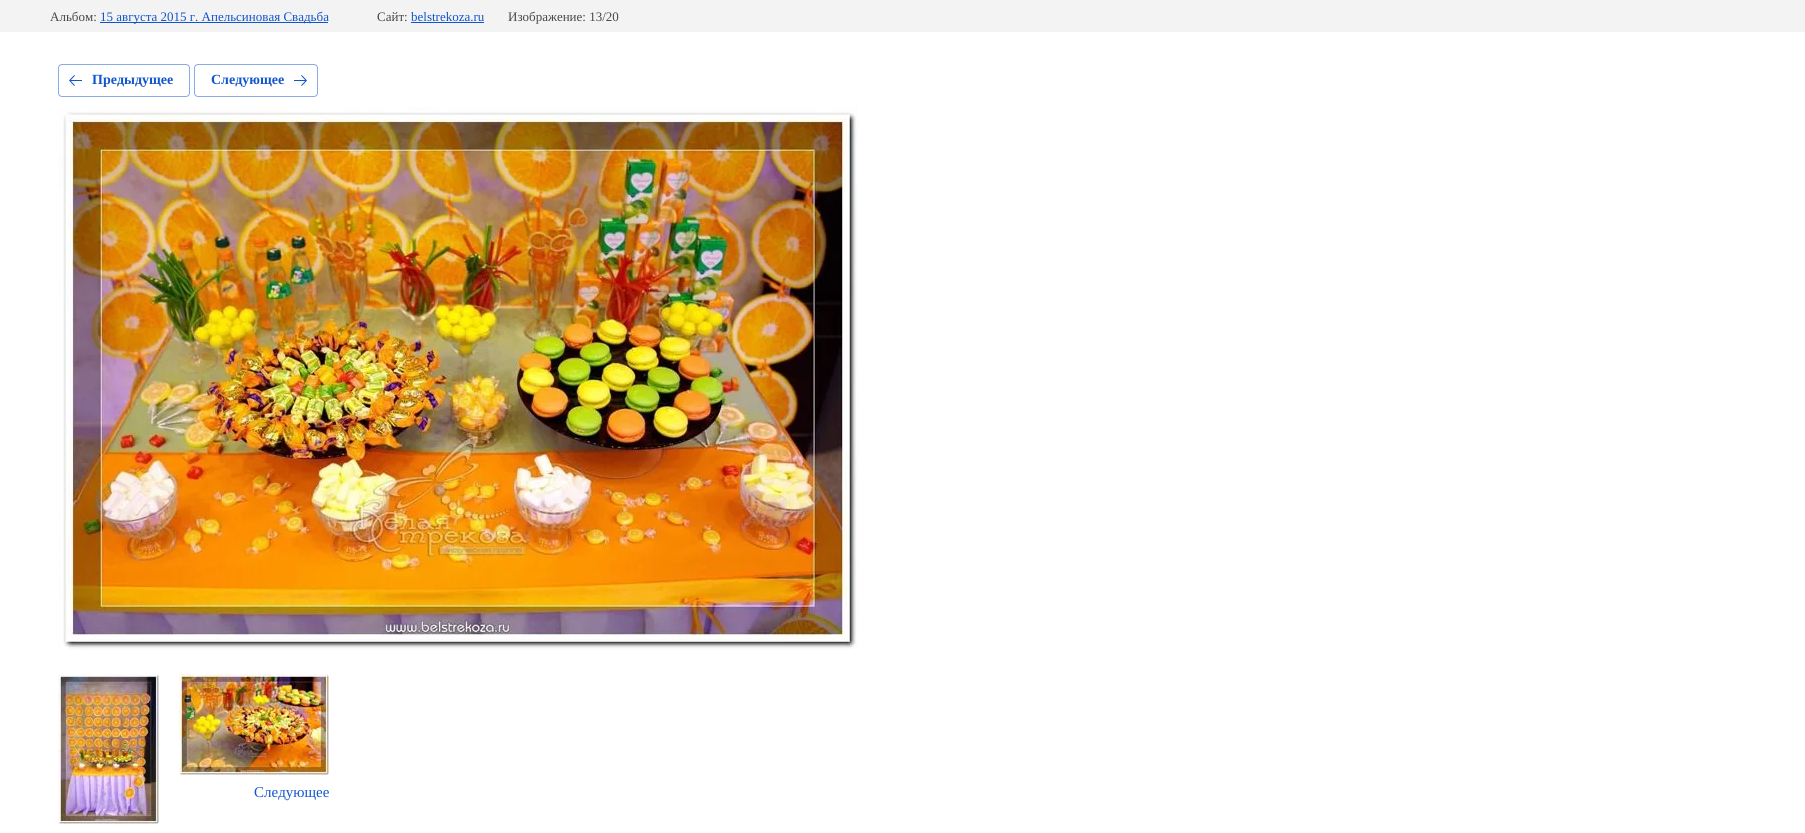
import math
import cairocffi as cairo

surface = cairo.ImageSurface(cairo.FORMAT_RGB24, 1805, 833)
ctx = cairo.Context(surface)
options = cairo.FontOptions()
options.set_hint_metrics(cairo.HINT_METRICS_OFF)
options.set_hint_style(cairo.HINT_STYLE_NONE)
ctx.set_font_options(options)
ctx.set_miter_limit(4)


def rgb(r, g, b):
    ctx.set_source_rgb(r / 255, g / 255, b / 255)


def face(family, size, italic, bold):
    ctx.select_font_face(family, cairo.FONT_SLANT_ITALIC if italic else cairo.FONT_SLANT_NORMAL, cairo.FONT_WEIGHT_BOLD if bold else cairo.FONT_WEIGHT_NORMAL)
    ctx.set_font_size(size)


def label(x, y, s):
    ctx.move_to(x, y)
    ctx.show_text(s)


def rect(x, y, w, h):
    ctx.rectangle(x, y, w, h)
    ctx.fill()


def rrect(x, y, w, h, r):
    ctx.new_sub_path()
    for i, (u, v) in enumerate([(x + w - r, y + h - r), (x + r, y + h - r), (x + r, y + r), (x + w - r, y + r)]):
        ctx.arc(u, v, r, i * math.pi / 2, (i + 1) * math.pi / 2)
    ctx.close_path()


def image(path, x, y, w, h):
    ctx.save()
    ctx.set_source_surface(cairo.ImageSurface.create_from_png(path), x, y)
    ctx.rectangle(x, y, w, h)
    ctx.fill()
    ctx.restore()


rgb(255, 255, 255)
ctx.paint()
rgb(243, 243, 243)
rect(0, 0, 1805, 32)
face('Liberation Serif', 13, 0, 0)
rgb(72, 72, 72)
label(50, 21, 'Альбом:')
rgb(17, 85, 204)
rect(100, 22, 228, 1)
label(100, 21, '15 августа 2015 г. Апельсиновая Свадьба')
rgb(72, 72, 72)
label(377, 21, 'Сайт:')
rgb(17, 85, 204)
label(411, 21, 'belstrekoza.ru')
rect(411, 22, 73, 1)
rgb(72, 72, 72)
label(508, 21, 'Изображение: 13/20')
rrect(58.5, 64.5, 131, 32, 3.5)
rgb(136, 170, 230)
ctx.set_line_width(1)
ctx.stroke()
image('image0.png', 69, 75, 13, 11)
face('Liberation Serif', 14, 0, 1)
rgb(17, 85, 204)
label(92, 84, 'Предыдущее')
rrect(194.5, 64.5, 123, 32, 3.5)
rgb(136, 170, 230)
ctx.stroke()
rgb(17, 85, 204)
label(211, 84, 'Следующее')
image('image1.png', 294, 75, 13, 11)
image('image2.png', 58, 107, 800, 543)
image('image3.png', 58, 674, 101, 150)
image('image4.png', 179, 674, 150, 101)
face('Liberation Serif', 15, 0, 0)
label(254, 797, 'Следующее')
surface.write_to_png('render.png')
